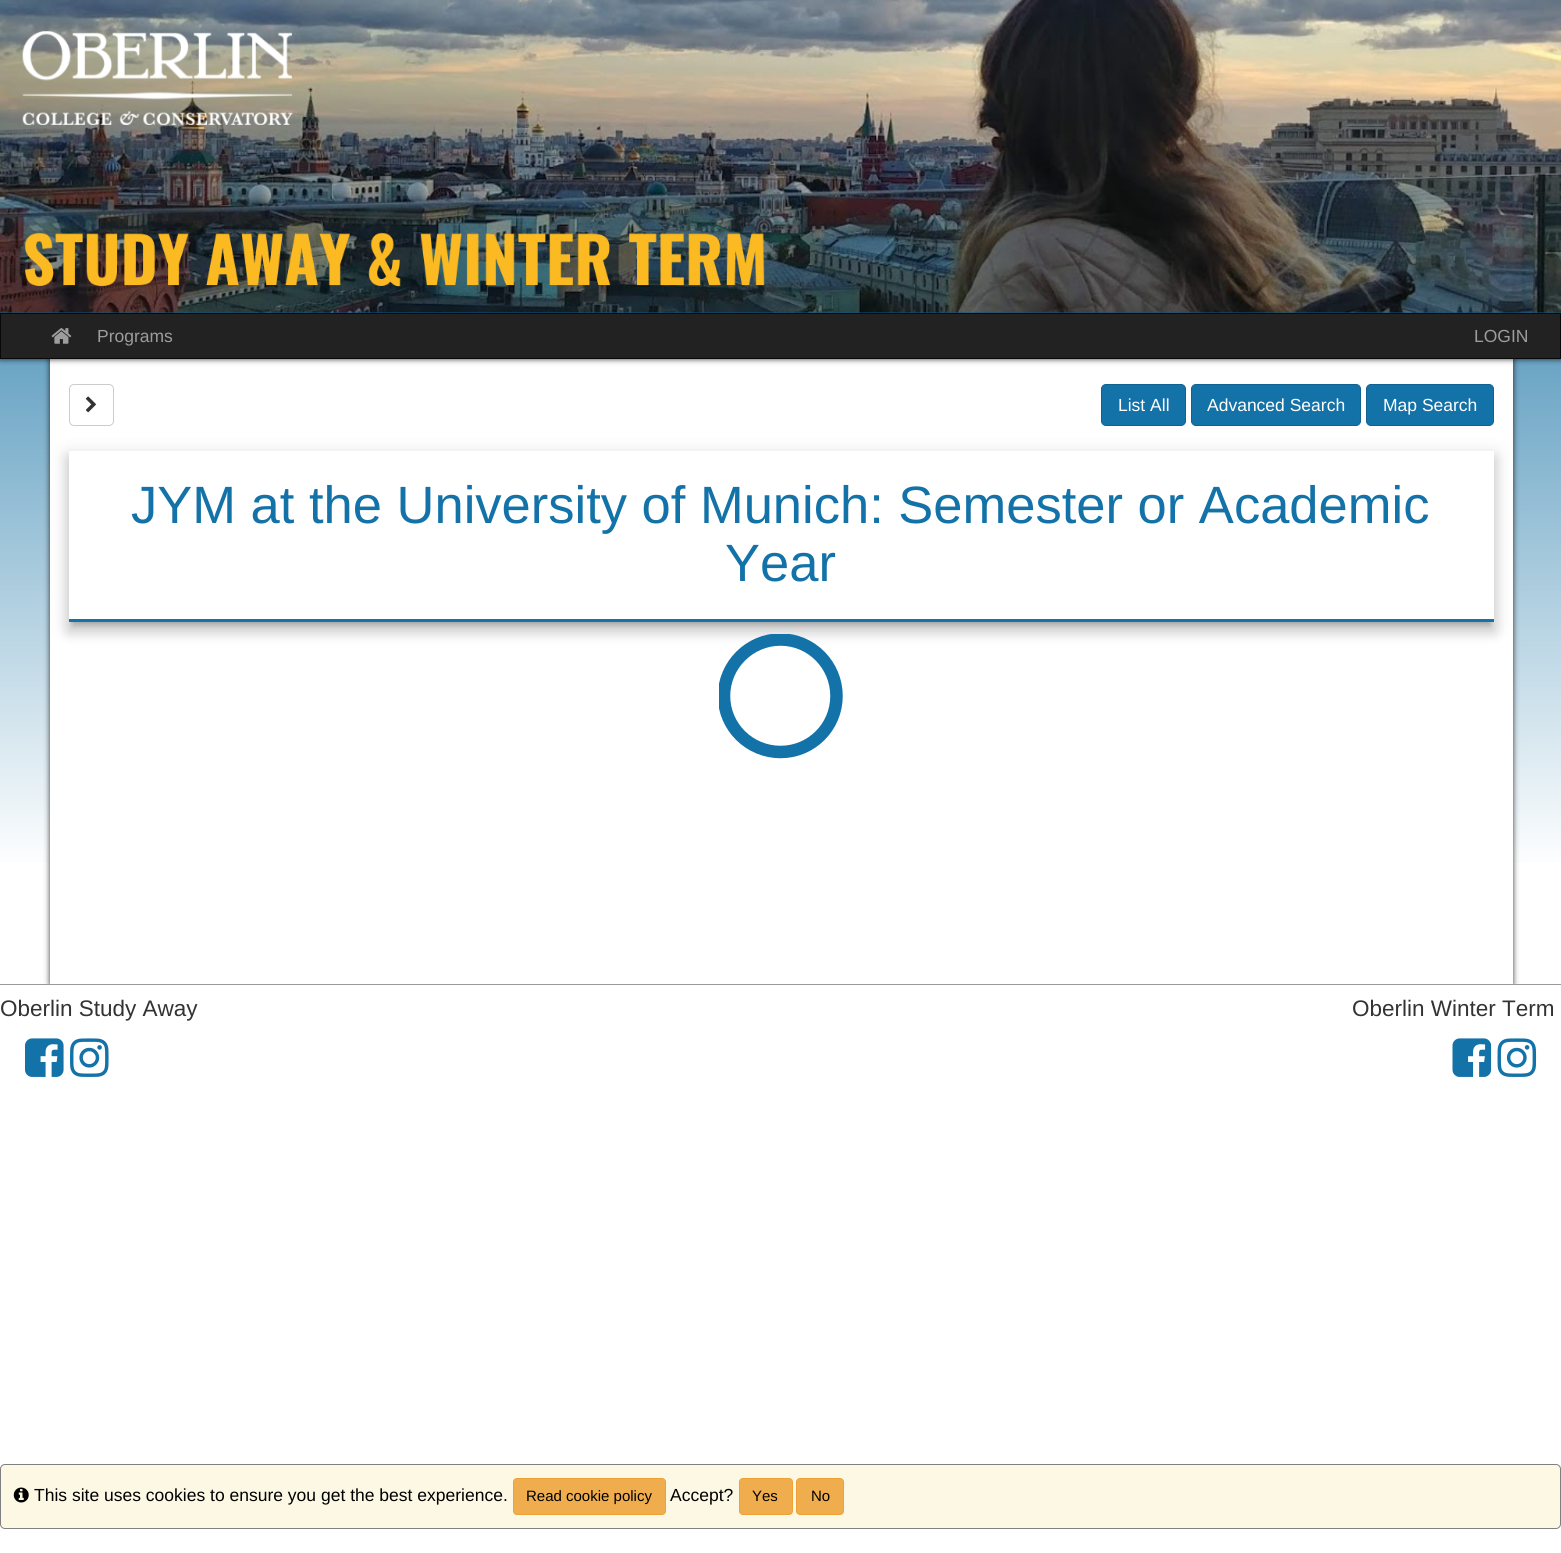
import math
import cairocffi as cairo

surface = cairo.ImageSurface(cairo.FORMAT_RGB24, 1561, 1553)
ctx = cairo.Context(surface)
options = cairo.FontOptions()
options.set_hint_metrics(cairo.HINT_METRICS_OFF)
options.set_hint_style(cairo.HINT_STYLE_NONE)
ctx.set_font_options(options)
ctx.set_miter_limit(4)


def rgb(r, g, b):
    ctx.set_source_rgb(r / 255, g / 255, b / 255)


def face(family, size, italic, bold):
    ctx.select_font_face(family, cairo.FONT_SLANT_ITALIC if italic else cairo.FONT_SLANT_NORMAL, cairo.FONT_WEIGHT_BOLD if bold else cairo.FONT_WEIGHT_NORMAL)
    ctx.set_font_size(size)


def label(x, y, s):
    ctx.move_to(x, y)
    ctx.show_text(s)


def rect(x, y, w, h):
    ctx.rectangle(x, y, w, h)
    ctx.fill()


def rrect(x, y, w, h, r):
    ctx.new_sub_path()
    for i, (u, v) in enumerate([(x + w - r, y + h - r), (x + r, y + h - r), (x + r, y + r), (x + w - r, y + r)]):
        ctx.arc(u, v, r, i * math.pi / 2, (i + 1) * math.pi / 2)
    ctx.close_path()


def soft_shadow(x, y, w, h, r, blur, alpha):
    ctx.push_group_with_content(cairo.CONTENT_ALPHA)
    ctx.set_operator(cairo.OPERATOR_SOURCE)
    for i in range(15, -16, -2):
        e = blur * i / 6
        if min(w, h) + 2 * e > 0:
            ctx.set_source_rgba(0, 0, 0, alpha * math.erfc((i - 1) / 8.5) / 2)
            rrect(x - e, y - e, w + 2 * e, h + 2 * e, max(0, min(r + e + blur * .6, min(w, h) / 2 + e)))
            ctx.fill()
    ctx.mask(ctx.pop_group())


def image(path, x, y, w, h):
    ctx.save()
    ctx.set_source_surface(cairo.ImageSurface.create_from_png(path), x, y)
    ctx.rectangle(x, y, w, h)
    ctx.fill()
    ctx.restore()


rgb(255, 255, 255)
ctx.paint()
gradient = cairo.LinearGradient(781, 0, 781, 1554)
gradient.add_color_stop_rgba(0.04, 0.078, 0.439, 0.639, 1)
gradient.add_color_stop_rgba(0.56, 1, 1, 1, 1)
ctx.set_source(gradient)
rect(0, 359, 1561, 503)
rgb(0, 0, 0)
soft_shadow(50, 359, 1463, 625, 0, 3, 0.8)
rgb(255, 255, 255)
rect(50, 359, 1463, 625)
rgb(0, 0, 0)
soft_shadow(0, 313, 1561, 46, 0, 3, 0.8)
rgb(13, 86, 131)
rect(0, 312, 1561, 1)
image('image0.png', 0, 0, 1561, 313)
rgb(34, 34, 34)
ctx.rectangle(0.5, 313.5, 1560, 45)
ctx.fill_preserve()
rgb(8, 8, 8)
ctx.set_line_width(1)
ctx.stroke()
image('image1.png', 51, 328, 21, 16)
face('Liberation Sans', 17.5, 0, 0)
rgb(157, 157, 157)
label(97, 342, 'Programs')
label(1474, 342, 'LOGIN')
ctx.save()
ctx.set_fill_rule(cairo.FILL_RULE_EVEN_ODD)
ctx.new_path()
ctx.move_to(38, 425)
ctx.line_to(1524, 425)
ctx.line_to(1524, 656)
ctx.line_to(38, 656)
ctx.close_path()
ctx.move_to(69, 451)
ctx.line_to(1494, 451)
ctx.line_to(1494, 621)
ctx.line_to(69, 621)
ctx.close_path()
ctx.clip()
rgb(0, 0, 0)
soft_shadow(66, 453, 1430, 175, 0, 9, 0.12)
ctx.restore()
rrect(69.5, 384.5, 44, 41, 4.5)
rgb(204, 204, 204)
ctx.stroke()
image('image2.png', 85, 396, 11, 17)
rgb(19, 114, 168)
rrect(1101.5, 384.5, 84, 41, 4.5)
ctx.fill_preserve()
rgb(16, 98, 145)
ctx.stroke()
rgb(255, 255, 255)
label(1118, 411, 'List All')
rgb(19, 114, 168)
rrect(1191.5, 384.5, 169, 41, 4.5)
ctx.fill_preserve()
rgb(16, 98, 145)
ctx.stroke()
rgb(255, 255, 255)
label(1207, 411, 'Advanced Search')
rgb(19, 114, 168)
rrect(1366.5, 384.5, 127, 41, 4.5)
ctx.fill_preserve()
rgb(16, 98, 145)
ctx.stroke()
rgb(255, 255, 255)
label(1383, 411, 'Map Search')
ctx.save()
ctx.set_fill_rule(cairo.FILL_RULE_EVEN_ODD)
ctx.new_path()
ctx.move_to(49, 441)
ctx.line_to(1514, 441)
ctx.line_to(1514, 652)
ctx.line_to(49, 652)
ctx.close_path()
ctx.move_to(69, 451)
ctx.line_to(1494, 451)
ctx.line_to(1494, 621)
ctx.line_to(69, 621)
ctx.close_path()
ctx.clip()
rgb(0, 0, 0)
soft_shadow(68, 460, 1427, 173, 0, 6, 0.14)
ctx.restore()
ctx.save()
ctx.rectangle(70, 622, 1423, 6)
ctx.clip()
rgb(0, 0, 0)
soft_shadow(73, 461, 1417, 163, 0, 3, 0.2)
ctx.restore()
rgb(19, 114, 168)
rect(69, 619, 1425, 3)
face('Liberation Sans', 52.5, 0, 0)
label(131, 523, 'JYM at the University of Munich: Semester or Academic')
label(725, 581, 'Year')
ctx.save()
ctx.rectangle(719, 634, 125, 125)
ctx.clip()
ctx.new_path()
ctx.move_to(724, 696)
ctx.curve_to(724, 665, 749.5, 639.5, 780.5, 639.5)
ctx.curve_to(811.5, 639.5, 836.5, 665, 836.5, 696)
ctx.curve_to(836.5, 727, 811.5, 752, 780.5, 752)
ctx.curve_to(749.5, 752, 724, 727, 724, 696)
ctx.set_line_width(12.5)
ctx.stroke()
ctx.restore()
rgb(255, 255, 255)
rect(45, 985, 1473, 6)
rgb(153, 153, 153)
rect(0, 984, 1561, 1)
face('Liberation Sans', 22.5, 0, 0)
rgb(51, 51, 51)
label(0, 1016, 'Oberlin Study Away')
label(1352, 1016, 'Oberlin Winter Term')
image('image3.png', 25, 1038, 39, 39)
image('image4.png', 70, 1038, 39, 39)
image('image5.png', 1452, 1038, 40, 39)
image('image6.png', 1497, 1038, 40, 39)
rgb(252, 248, 227)
rrect(0.5, 1464.5, 1560, 64, 4.5)
ctx.fill_preserve()
rgb(128, 128, 128)
ctx.stroke()
image('image7.png', 13, 1487, 16, 16)
face('Liberation Sans', 17.5, 0, 0)
rgb(0, 0, 0)
label(34, 1501, 'This site uses cookies to ensure you get the best experience.')
rgb(240, 173, 78)
rrect(513.5, 1478.5, 152, 36, 3.5)
ctx.fill_preserve()
rgb(238, 162, 54)
ctx.stroke()
face('Liberation Sans', 15, 0, 0)
rgb(0, 0, 0)
label(526, 1501, 'Read cookie policy')
face('Liberation Sans', 17.5, 0, 0)
label(670, 1501, 'Accept?')
rgb(240, 173, 78)
rrect(739.5, 1478.5, 53, 36, 3.5)
ctx.fill_preserve()
rgb(238, 162, 54)
ctx.stroke()
face('Liberation Sans', 15, 0, 0)
rgb(0, 0, 0)
label(752, 1501, 'Yes')
rgb(240, 173, 78)
rrect(796.5, 1478.5, 47, 36, 3.5)
ctx.fill_preserve()
rgb(238, 162, 54)
ctx.stroke()
rgb(0, 0, 0)
label(811, 1501, 'No')
surface.write_to_png('render.png')
